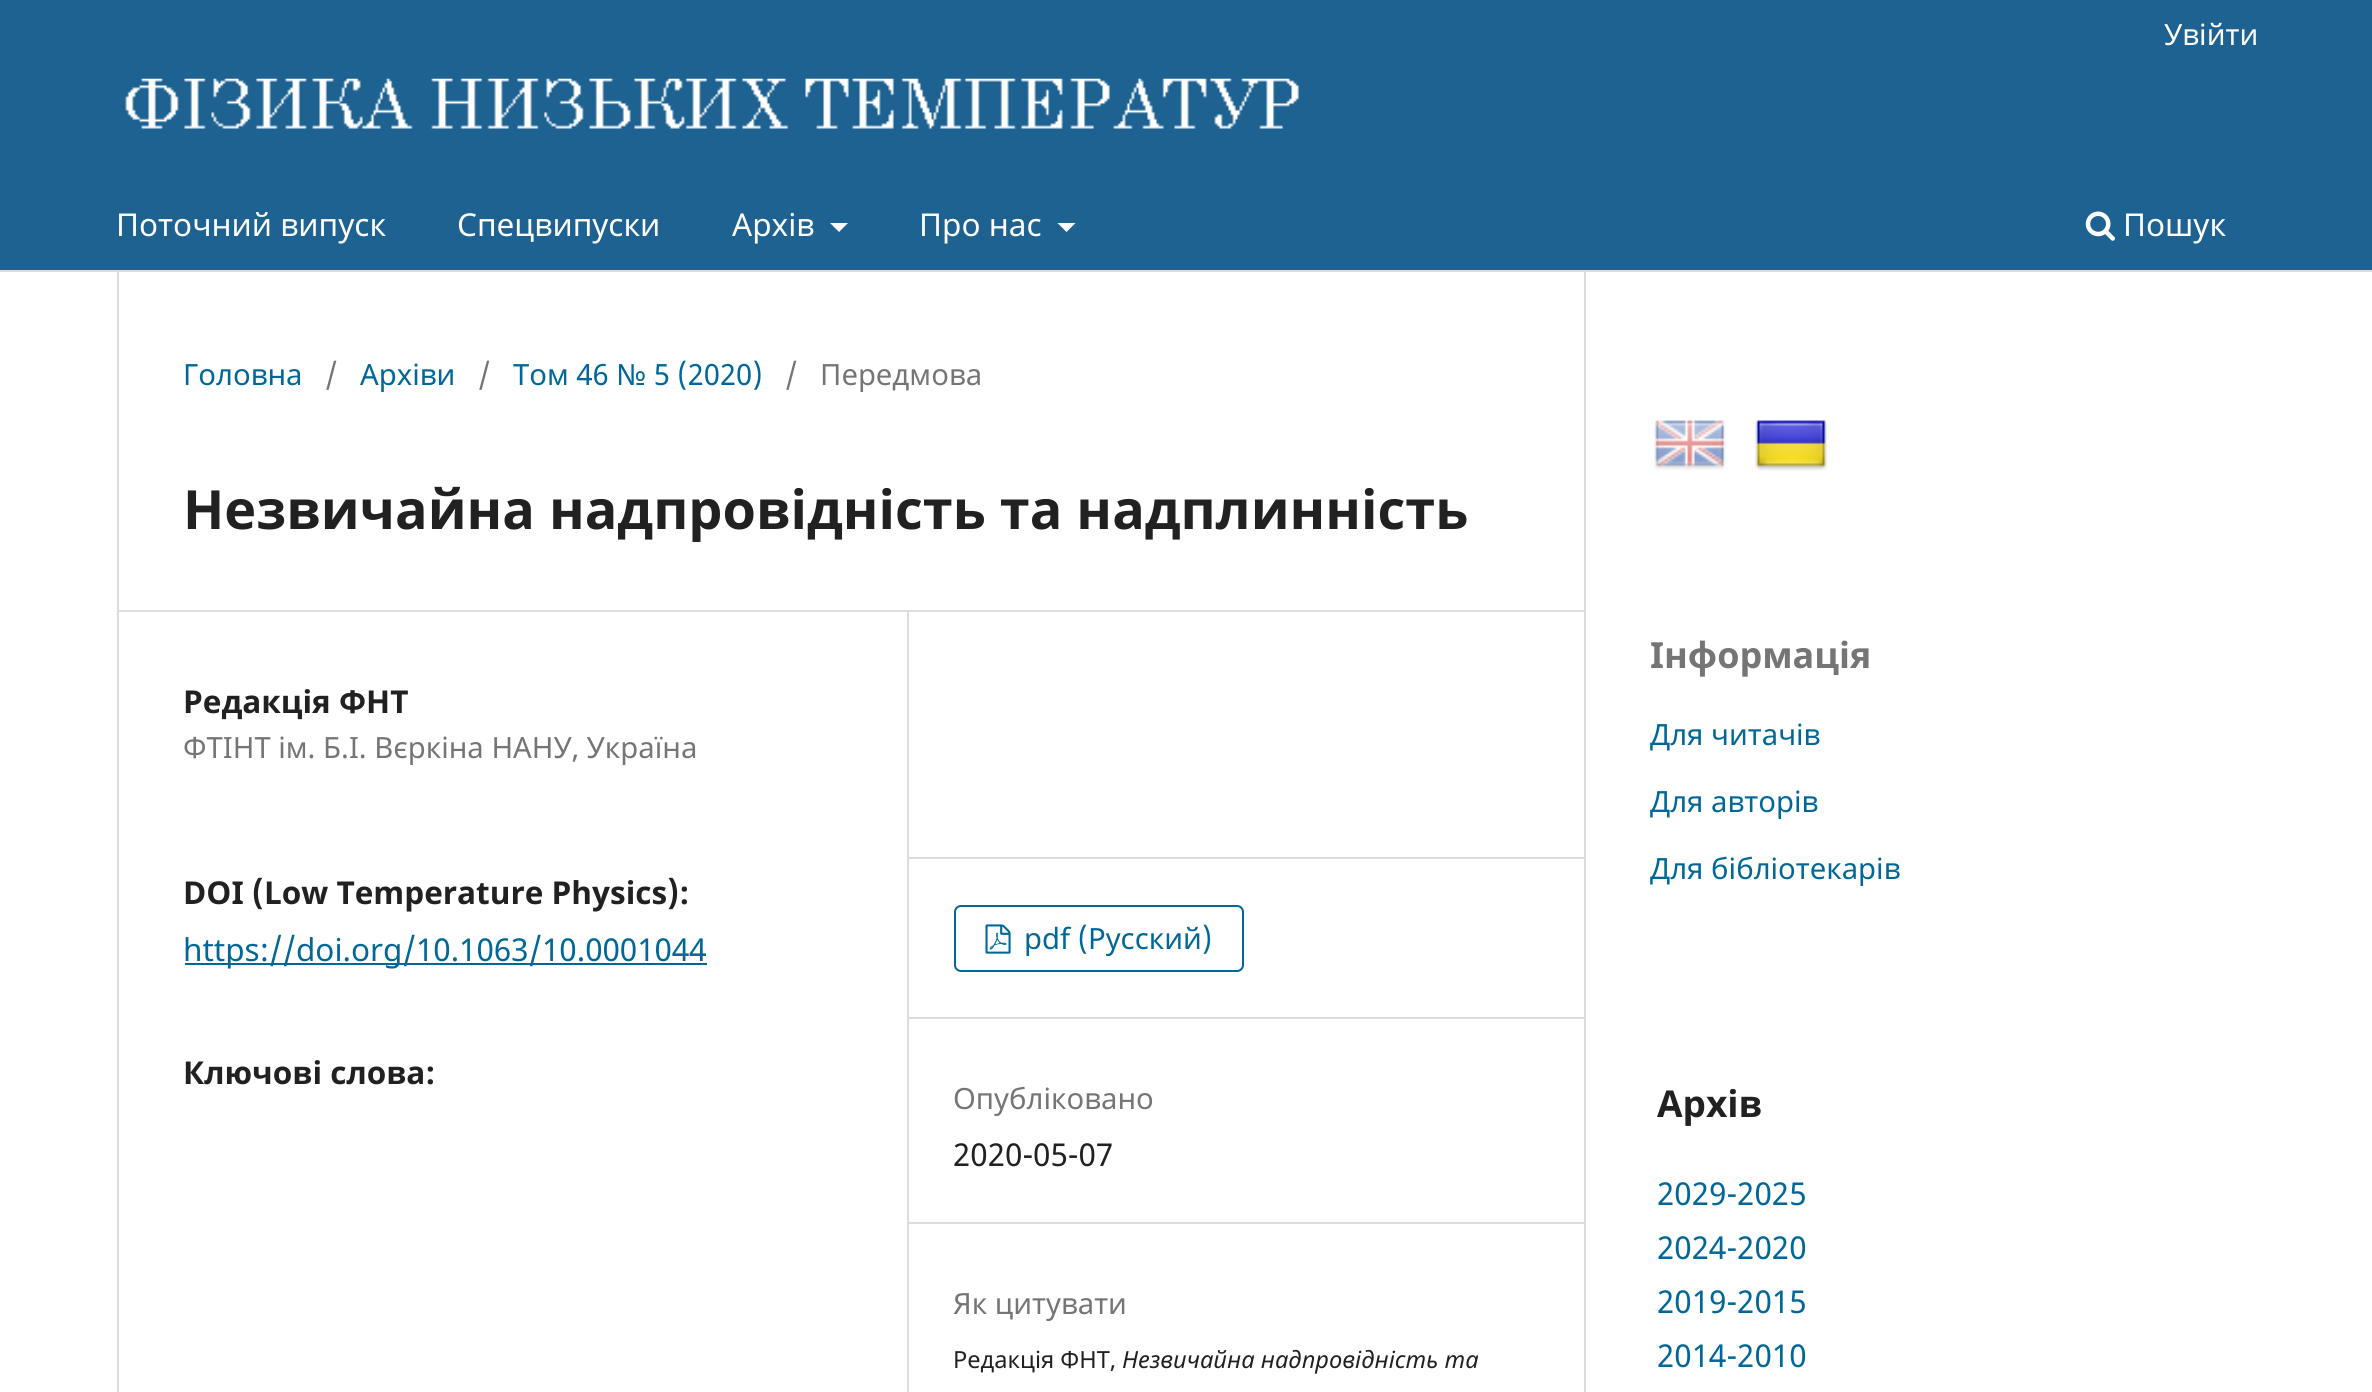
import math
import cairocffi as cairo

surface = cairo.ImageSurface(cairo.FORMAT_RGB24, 2372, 1392)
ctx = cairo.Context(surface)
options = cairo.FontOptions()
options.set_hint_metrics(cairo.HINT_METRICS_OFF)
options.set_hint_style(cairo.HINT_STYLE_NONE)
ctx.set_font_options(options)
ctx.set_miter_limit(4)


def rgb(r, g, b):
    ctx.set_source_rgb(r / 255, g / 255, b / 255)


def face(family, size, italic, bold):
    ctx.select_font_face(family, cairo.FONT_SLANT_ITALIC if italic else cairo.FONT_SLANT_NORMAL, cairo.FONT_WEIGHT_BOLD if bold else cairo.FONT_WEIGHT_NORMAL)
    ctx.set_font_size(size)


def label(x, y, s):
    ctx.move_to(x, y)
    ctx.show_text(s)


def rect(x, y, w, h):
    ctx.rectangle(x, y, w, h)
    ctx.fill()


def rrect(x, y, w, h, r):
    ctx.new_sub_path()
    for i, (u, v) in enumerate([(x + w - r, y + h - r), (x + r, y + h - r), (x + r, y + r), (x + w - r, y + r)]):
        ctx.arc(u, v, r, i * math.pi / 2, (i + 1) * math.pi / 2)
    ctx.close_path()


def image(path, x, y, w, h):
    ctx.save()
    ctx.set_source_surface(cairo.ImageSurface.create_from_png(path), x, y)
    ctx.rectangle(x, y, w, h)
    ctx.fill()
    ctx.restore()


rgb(255, 255, 255)
ctx.paint()
rgb(30, 98, 146)
rect(0, 0, 2372, 270)
rgb(221, 221, 221)
rect(0, 270, 2372, 2)
face('Noto Sans', 29.25, 0, 0)
rgb(255, 255, 255)
label(2164, 45, 'Увійти')
face('Noto Sans', 31.5, 0, 0)
label(116, 236, 'Поточний випуск')
label(457, 236, 'Спецвипуски')
label(732, 236, 'Архів')
ctx.new_path()
ctx.move_to(830, 223)
ctx.line_to(848, 223)
ctx.line_to(839, 232)
ctx.close_path()
ctx.fill()
label(919, 236, 'Про нас')
ctx.new_path()
ctx.move_to(1057.5, 223)
ctx.line_to(1075.5, 223)
ctx.line_to(1066.5, 232)
ctx.close_path()
ctx.fill()
image('image0.png', 2085, 211, 30, 30)
label(2123, 236, 'Пошук')
image('image1.png', 125, 78, 1174, 51)
rgb(221, 221, 221)
rect(117, 610, 1467, 2)
rect(117, 272, 2, 1120)
face('Noto Sans', 29.25, 0, 0)
rgb(0, 103, 152)
label(183, 385, 'Головна')
rgb(117, 117, 117)
label(325, 385, '/')
rgb(0, 103, 152)
label(360, 385, 'Архіви')
rgb(117, 117, 117)
label(478, 385, '/')
rgb(0, 103, 152)
label(513, 385, 'Том 46 № 5 (2020)')
rgb(117, 117, 117)
label(785, 385, '/')
label(820, 385, 'Передмова')
face('Noto Sans', 54, 0, 1)
rgb(33, 33, 33)
label(183, 529, 'Незвичайна надпровідність та надплинність')
face('Noto Sans', 31.5, 0, 1)
label(183, 713, 'Редакція ФНТ')
face('Noto Sans', 29.25, 0, 0)
rgb(117, 117, 117)
label(183, 758, 'ФТІНТ ім. Б.І. Вєркіна НАНУ, Україна')
face('Noto Sans', 31.5, 0, 1)
rgb(33, 33, 33)
label(183, 904, 'DOI (Low Temperature Physics):')
rgb(0, 103, 152)
rect(185, 963, 522, 2)
face('Noto Sans', 31.5, 0, 0)
label(183, 961, 'https://doi.org/10.1063/10.0001044')
face('Noto Sans', 31.5, 0, 1)
rgb(33, 33, 33)
label(183, 1084, 'Ключові слова:')
rgb(221, 221, 221)
rect(907, 612, 2, 780)
rect(909, 857, 675, 2)
rgb(251, 253, 253)
rect(954, 658, 1, 1)
rgb(221, 221, 221)
rect(909, 1017, 675, 2)
rrect(955, 906, 288, 65, 6)
rgb(0, 103, 152)
ctx.stroke()
image('image2.png', 985, 924, 26, 30)
face('Noto Sans', 29.25, 0, 0)
label(1024, 949, 'pdf (Русский)')
rgb(221, 221, 221)
rect(909, 1222, 675, 2)
rgb(117, 117, 117)
label(953, 1109, 'Опубліковано')
face('Noto Sans', 31.5, 0, 0)
rgb(33, 33, 33)
label(953, 1166, '2020-05-07')
face('Noto Sans', 29.25, 0, 0)
rgb(117, 117, 117)
label(953, 1314, 'Як цитувати')
face('Noto Sans', 23.6, 0, 0)
rgb(33, 33, 33)
label(953, 1368, 'Редакція ФНТ,')
face('Noto Sans', 23.6, 1, 0)
label(1122, 1368, 'Незвичайна надпровідність та')
rgb(221, 221, 221)
rect(1584, 272, 2, 1120)
image('image3.png', 1654, 420, 72, 50)
image('image4.png', 1755, 420, 72, 51)
face('Noto Sans', 36, 0, 1)
rgb(117, 117, 117)
label(1650, 668, 'Інформація')
face('Noto Sans', 29.25, 0, 0)
rgb(0, 103, 152)
label(1650, 745, 'Для читачів')
label(1650, 812, 'Для авторів')
label(1650, 879, 'Для бібліотекарів')
face('Noto Sans', 37, 0, 1)
rgb(33, 33, 33)
label(1657, 1117, 'Архів')
face('Noto Sans', 31.5, 0, 0)
rgb(0, 103, 152)
label(1657, 1205, '2029-2025')
label(1657, 1259, '2024-2020')
label(1657, 1313, '2019-2015')
label(1657, 1367, '2014-2010')
surface.write_to_png('render.png')
